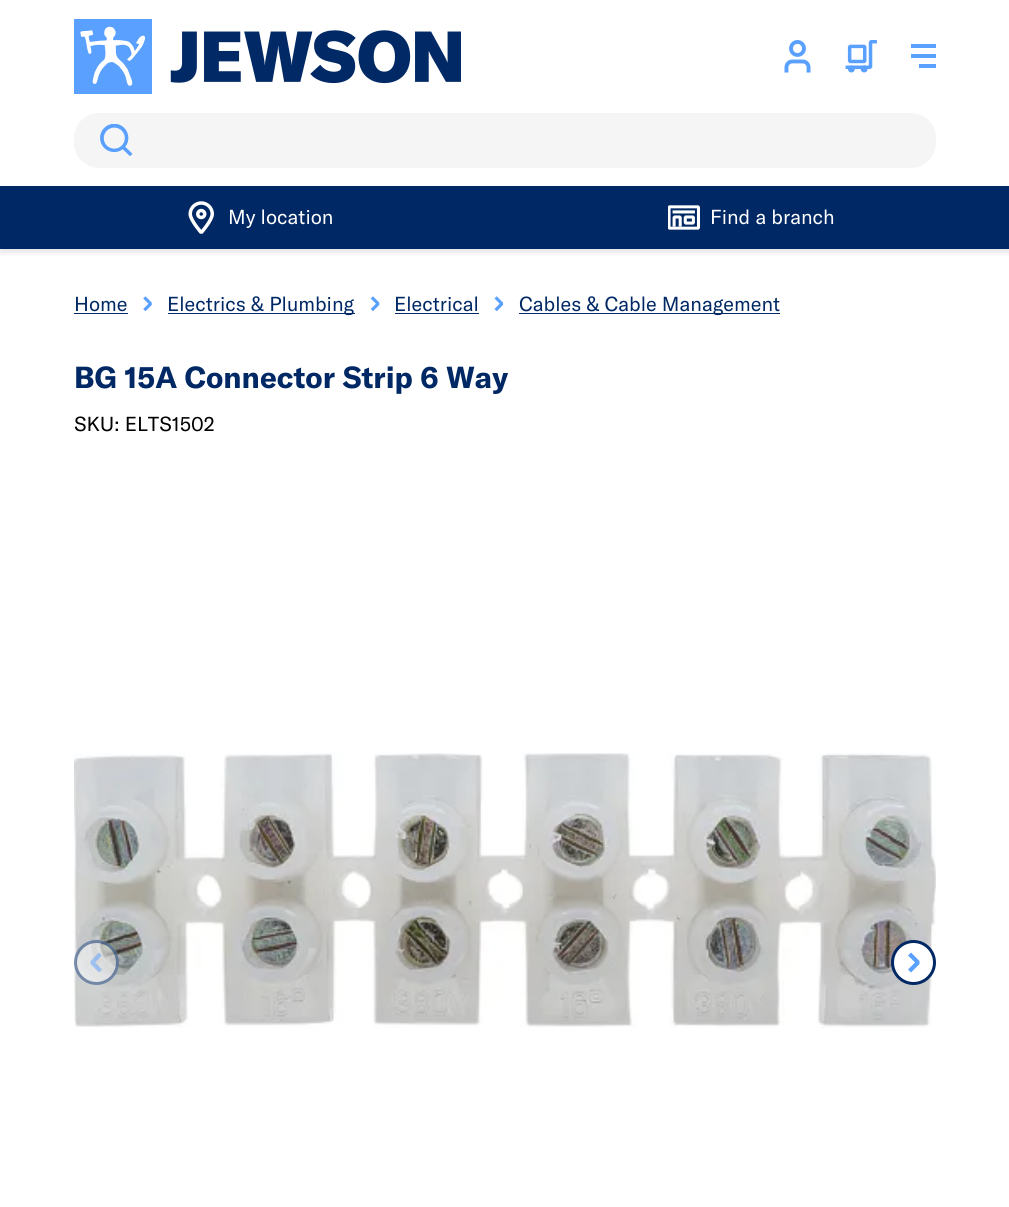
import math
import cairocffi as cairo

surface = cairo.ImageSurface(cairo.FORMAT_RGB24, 1009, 1207)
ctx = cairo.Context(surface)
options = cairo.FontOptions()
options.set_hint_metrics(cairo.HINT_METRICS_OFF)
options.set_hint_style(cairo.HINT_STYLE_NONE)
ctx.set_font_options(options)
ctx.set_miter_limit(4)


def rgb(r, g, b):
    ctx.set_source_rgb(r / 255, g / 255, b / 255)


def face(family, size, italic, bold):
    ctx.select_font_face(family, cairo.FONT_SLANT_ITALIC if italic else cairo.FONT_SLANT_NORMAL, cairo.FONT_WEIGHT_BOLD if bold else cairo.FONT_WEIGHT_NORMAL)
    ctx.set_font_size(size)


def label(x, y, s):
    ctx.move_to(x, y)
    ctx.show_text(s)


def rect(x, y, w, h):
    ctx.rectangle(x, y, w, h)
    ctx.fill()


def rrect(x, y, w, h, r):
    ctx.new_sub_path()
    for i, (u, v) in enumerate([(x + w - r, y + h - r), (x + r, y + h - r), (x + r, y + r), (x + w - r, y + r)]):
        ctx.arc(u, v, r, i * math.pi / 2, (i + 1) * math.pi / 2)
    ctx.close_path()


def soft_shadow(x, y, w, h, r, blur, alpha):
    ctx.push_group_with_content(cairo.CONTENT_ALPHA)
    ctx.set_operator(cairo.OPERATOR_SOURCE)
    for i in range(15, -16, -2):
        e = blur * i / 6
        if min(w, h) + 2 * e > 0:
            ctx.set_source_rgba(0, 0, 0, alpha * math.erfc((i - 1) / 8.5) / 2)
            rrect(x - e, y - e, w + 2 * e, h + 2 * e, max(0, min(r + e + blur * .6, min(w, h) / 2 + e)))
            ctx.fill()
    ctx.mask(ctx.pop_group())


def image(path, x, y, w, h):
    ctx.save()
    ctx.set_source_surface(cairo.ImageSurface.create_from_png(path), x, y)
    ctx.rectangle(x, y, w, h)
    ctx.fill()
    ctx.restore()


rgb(255, 255, 255)
ctx.paint()
rgb(0, 0, 0)
soft_shadow(0, 4, 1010, 249, 0, 2.5, 0.1)
rgb(255, 255, 255)
rect(0, 1, 1009, 185)
image('image0.png', 74, 19, 387, 75)
image('image1.png', 784, 40, 27, 33)
image('image2.png', 845, 40, 32, 33)
rgb(90, 160, 255)
rect(911, 44, 25, 4)
rect(911, 54, 25, 4)
rect(919, 64, 17, 4)
rgb(245, 245, 245)
rrect(74, 113, 862, 55, 25)
ctx.fill()
image('image3.png', 100, 124, 33, 32)
rgb(0, 40, 100)
rect(0, 186, 1009, 63)
image('image4.png', 188, 201, 26, 33)
face('GT America', 20, 0, 0)
rgb(255, 255, 255)
label(228, 224, 'My location')
image('image5.png', 668, 205, 32, 25)
label(710, 224, 'Find a branch')
rgb(0, 40, 100)
label(74, 311, 'Home')
rect(74, 313, 54, 1)
image('image6.png', 143, 296, 9, 15)
rect(168, 313, 187, 1)
label(167, 311, 'Electrics & Plumbing')
image('image7.png', 370, 296, 10, 15)
label(394, 311, 'Electrical')
rect(395, 313, 84, 1)
image('image8.png', 494, 296, 10, 15)
rect(519, 313, 261, 1)
label(519, 311, 'Cables & Cable Management')
face('GT America', 30, 0, 1)
label(74, 388, 'BG 15A Connector Strip 6 Way')
face('GT America', 20, 0, 0)
rgb(0, 0, 0)
label(74, 431, 'SKU: ELTS1502')
image('image9.png', 74, 753, 862, 275)
ctx.set_source_rgba(1, 1, 1, 0.5)
ctx.arc(96.5, 962.5, 22.5, 0, 2 * math.pi)
ctx.fill()
ctx.arc(96.5, 962.5, 21, 0, 2 * math.pi)
ctx.set_source_rgba(0, 0.157, 0.392, 0.5)
ctx.set_line_width(3)
ctx.stroke()
ctx.set_source_rgba(0.353, 0.627, 1, 0.5)
ctx.new_path()
ctx.move_to(99, 972.5)
ctx.line_to(102, 969.5)
ctx.line_to(95, 962.5)
ctx.line_to(102, 955.5)
ctx.line_to(99, 952.5)
ctx.line_to(90.5, 961)
ctx.line_to(90.5, 964)
ctx.close_path()
ctx.fill()
rgb(255, 255, 255)
ctx.arc(913.5, 962.5, 21, 0, 2 * math.pi)
ctx.fill_preserve()
rgb(0, 40, 100)
ctx.stroke()
rgb(90, 160, 255)
ctx.new_path()
ctx.move_to(911, 952.5)
ctx.line_to(908, 955.5)
ctx.line_to(915, 962.5)
ctx.line_to(908, 969.5)
ctx.line_to(911, 972.5)
ctx.line_to(919.5, 964)
ctx.line_to(919.5, 961)
ctx.close_path()
ctx.fill()
surface.write_to_png('render.png')
